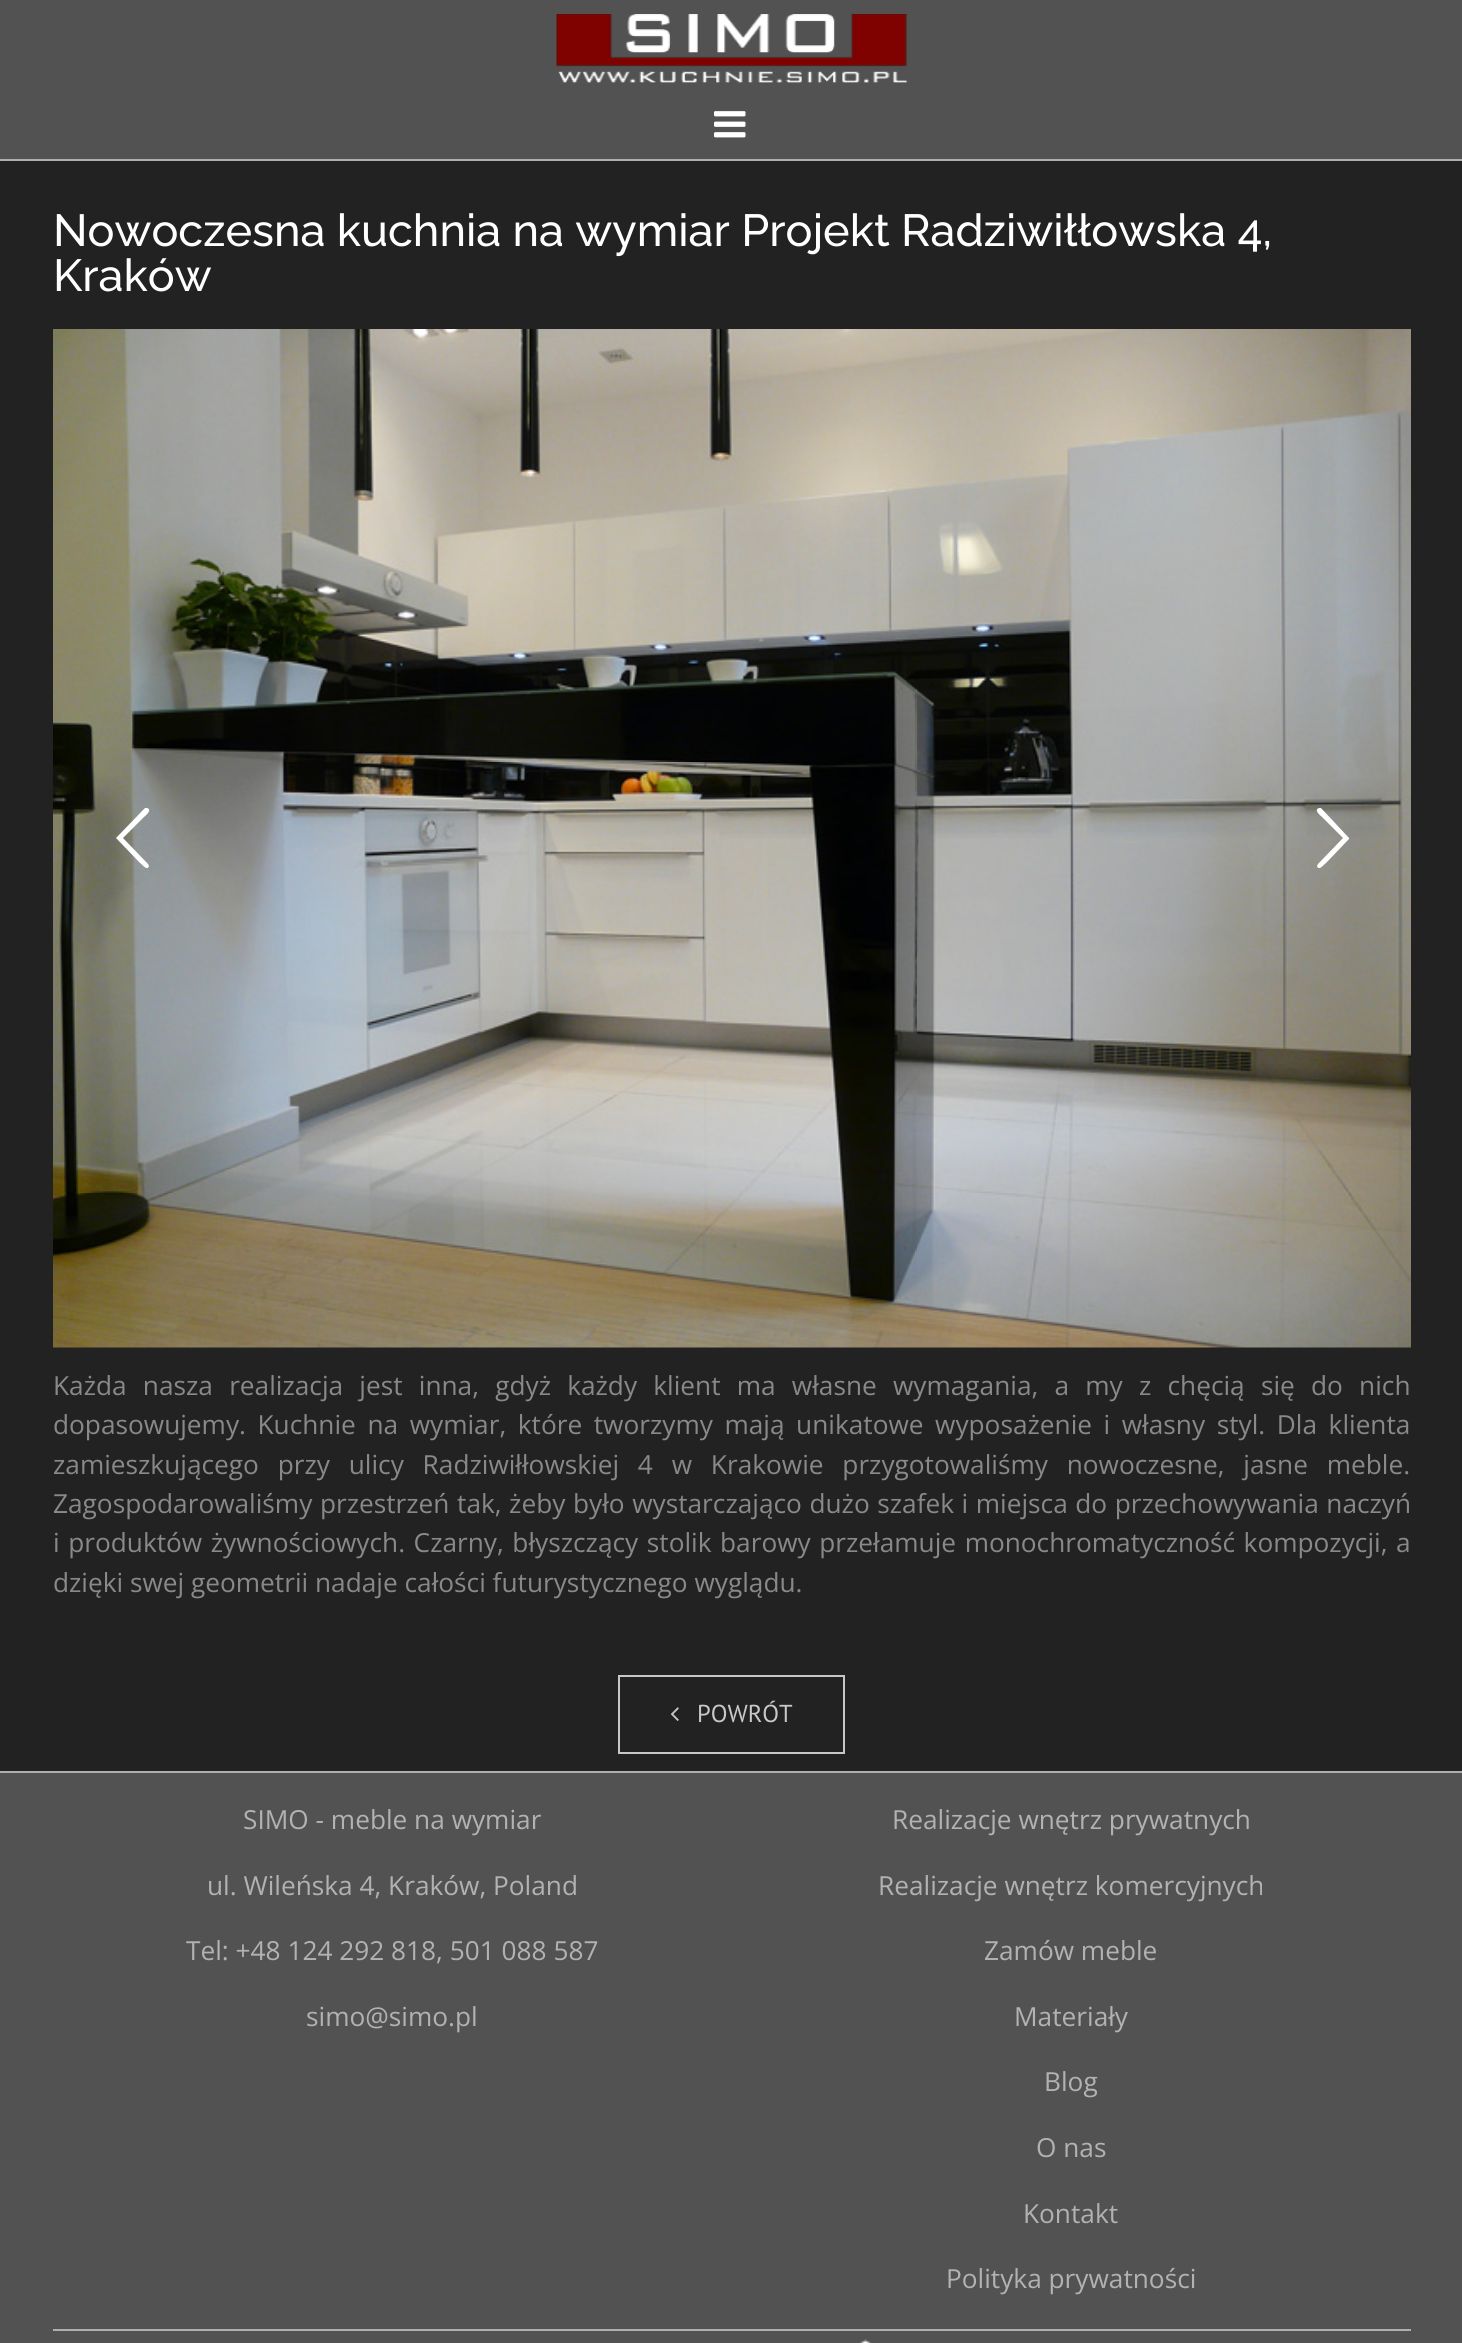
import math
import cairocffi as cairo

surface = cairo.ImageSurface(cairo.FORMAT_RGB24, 1462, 2343)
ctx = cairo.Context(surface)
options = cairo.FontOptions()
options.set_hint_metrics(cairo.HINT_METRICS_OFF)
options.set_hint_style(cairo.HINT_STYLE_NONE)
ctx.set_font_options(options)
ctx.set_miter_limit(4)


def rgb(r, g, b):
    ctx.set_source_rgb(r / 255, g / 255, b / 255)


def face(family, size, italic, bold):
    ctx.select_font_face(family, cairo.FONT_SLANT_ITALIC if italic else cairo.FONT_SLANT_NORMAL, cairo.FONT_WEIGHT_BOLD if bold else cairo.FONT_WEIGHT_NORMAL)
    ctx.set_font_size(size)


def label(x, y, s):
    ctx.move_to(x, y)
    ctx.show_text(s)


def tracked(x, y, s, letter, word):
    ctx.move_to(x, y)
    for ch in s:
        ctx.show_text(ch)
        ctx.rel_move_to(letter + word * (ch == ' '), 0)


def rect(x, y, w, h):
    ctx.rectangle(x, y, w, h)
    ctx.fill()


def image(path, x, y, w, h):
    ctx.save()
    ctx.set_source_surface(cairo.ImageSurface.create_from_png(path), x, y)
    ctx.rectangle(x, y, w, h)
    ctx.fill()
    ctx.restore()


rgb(34, 34, 34)
ctx.paint()
rgb(175, 175, 175)
rect(0, 159, 1462, 2)
rgb(82, 82, 82)
rect(0, 0, 1462, 159)
image('image0.png', 556, 14, 351, 69)
image('image1.png', 714, 111, 32, 27)
face('Raleway Thin', 44.95, 0, 0)
rgb(255, 255, 255)
label(53, 246, 'Nowoczesna kuchnia na wymiar Projekt Radziwiłłowska 4,')
label(53, 291, 'Kraków')
image('image2.png', 53, 329, 1358, 1019)
ctx.new_path()
ctx.move_to(148, 864)
ctx.line_to(149, 866)
ctx.curve_to(147, 872, 141, 863, 140, 863)
ctx.line_to(117, 839)
ctx.line_to(116, 838)
ctx.line_to(145, 808)
ctx.line_to(147, 808)
ctx.curve_to(153, 810, 145, 816, 144, 817)
ctx.line_to(123, 838)
ctx.close_path()
ctx.fill()
ctx.new_path()
ctx.move_to(1318, 864)
ctx.line_to(1343, 838)
ctx.line_to(1322, 817)
ctx.curve_to(1321, 816, 1313, 810, 1319, 808)
ctx.line_to(1321, 808)
ctx.line_to(1349, 838)
ctx.line_to(1349, 839)
ctx.line_to(1326, 863)
ctx.curve_to(1325, 863, 1319, 872, 1317, 866)
ctx.close_path()
ctx.fill()
face('Open Sans', 26.25, 0, 0)
rgb(137, 137, 137)
tracked(53, 1395, 'Każda nasza realizacja jest inna, gdyż każdy klient ma własne wymagania, a my z chęcią się do nich', 0, 9.4)
tracked(53, 1434, 'dopasowujemy. Kuchnie na wymiar, które tworzymy mają unikatowe wyposażenie i własny styl. Dla klienta', 0, 4.75)
tracked(53, 1474, 'zamieszkującego przy ulicy Radziwiłłowskiej 4 w Krakowie przygotowaliśmy nowoczesne, jasne meble.', 0, 12)
tracked(53, 1513, 'Zagospodarowaliśmy przestrzeń tak, żeby było wystarczająco dużo szafek i miejsca do przechowywania naczyń', 0, 0.75)
tracked(53, 1552, 'i produktów żywnościowych. Czarny, błyszczący stolik barowy przełamuje monochromatyczność kompozycji, a', 0, 1.75)
label(53, 1592, 'dzięki swej geometrii nadaje całości futurystycznego wyglądu.')
ctx.rectangle(619, 1676, 225, 77)
rgb(200, 200, 200)
ctx.stroke()
image('image3.png', 670, 1707, 9, 14)
face('PT Sans', 24.5, 0, 0)
label(697, 1722, 'POWRÓT')
rgb(82, 82, 82)
rect(0, 1773, 1462, 570)
rgb(175, 175, 175)
rect(0, 1771, 1462, 2)
face('Open Sans', 26.25, 0, 0)
rgb(178, 178, 178)
label(243, 1829, 'SIMO - meble na wymiar')
label(207, 1895, 'ul. Wileńska 4, Kraków, Poland')
label(186, 1960, 'Tel: +48 124 292 818, 501 088 587')
label(306, 2026, 'simo@simo.pl')
label(892, 1829, 'Realizacje wnętrz prywatnych')
label(878, 1895, 'Realizacje wnętrz komercyjnych')
label(984, 1960, 'Zamów meble')
label(1014, 2026, 'Materiały')
label(1044, 2091, 'Blog')
label(1036, 2157, 'O nas')
label(1023, 2223, 'Kontakt')
label(946, 2288, 'Polityka prywatności')
rgb(175, 175, 175)
rect(53, 2329, 1358, 2)
image('image4.png', 859, 2339, 13, 4)
surface.write_to_png('render.png')
